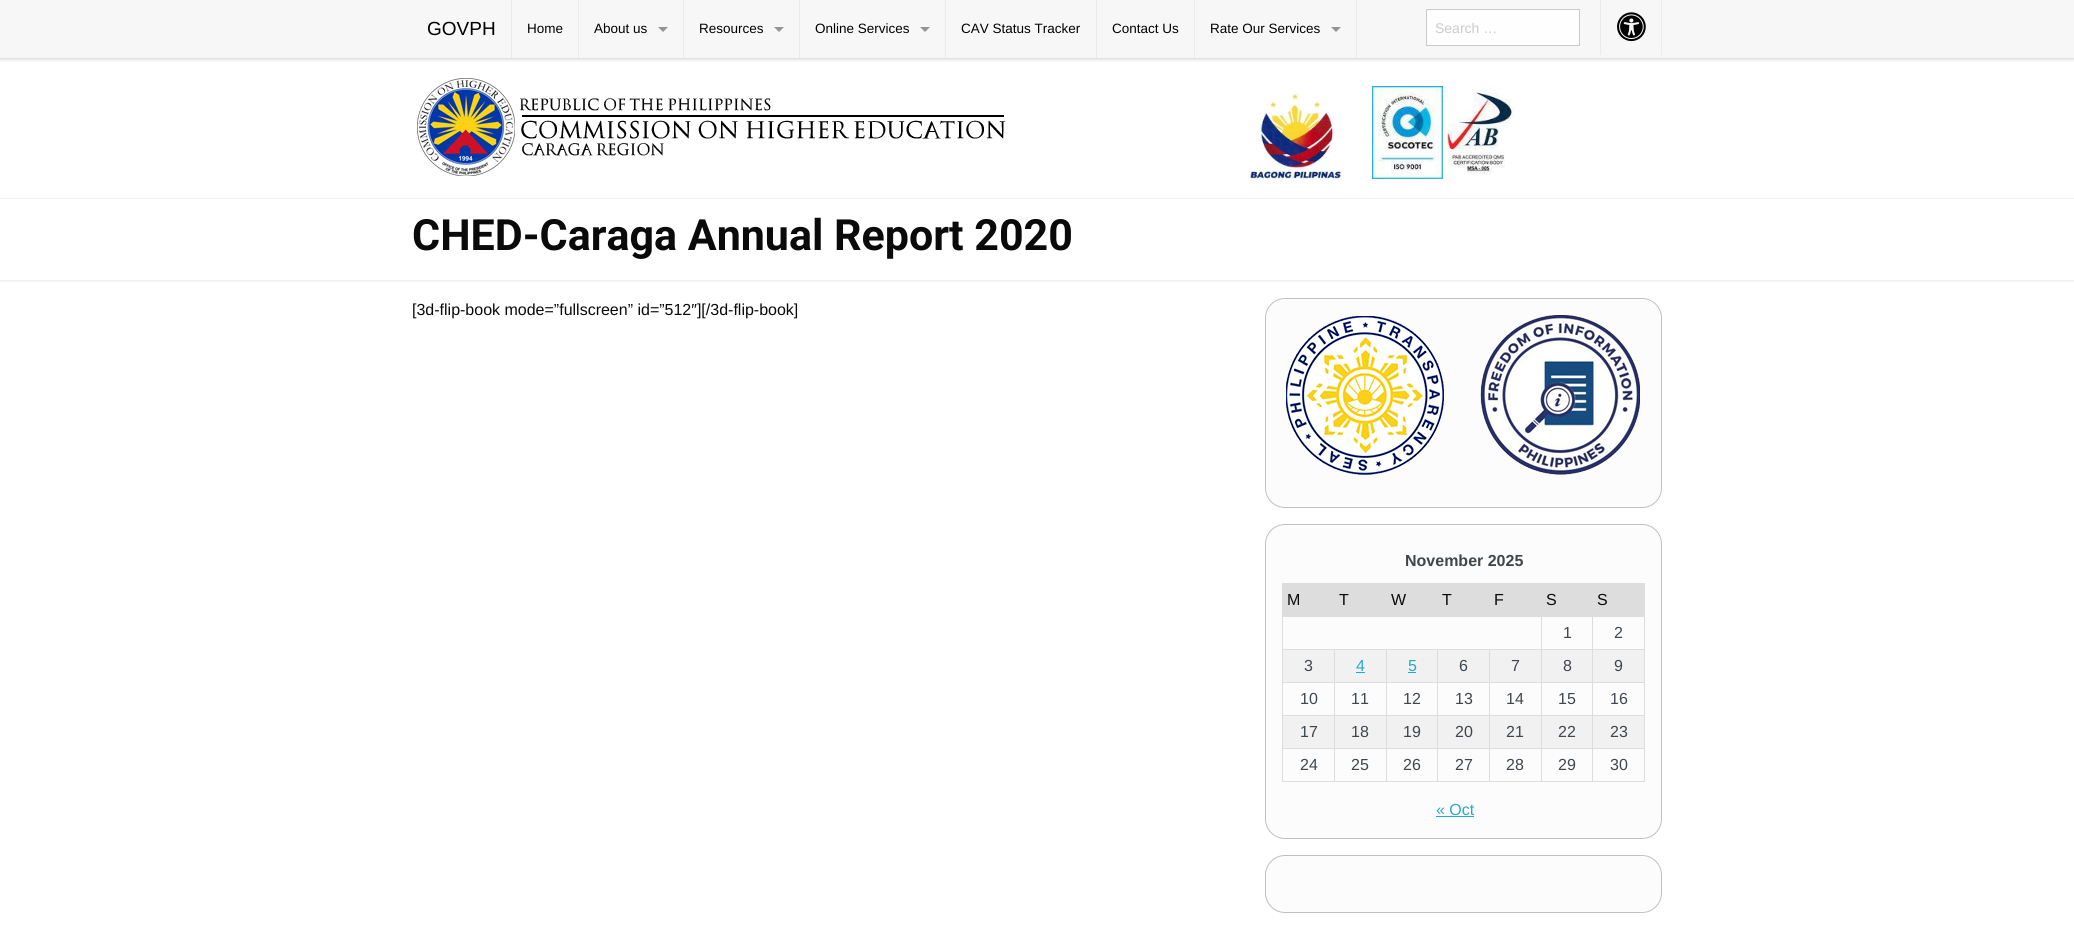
import math
import cairocffi as cairo

surface = cairo.ImageSurface(cairo.FORMAT_RGB24, 2074, 941)
ctx = cairo.Context(surface)
options = cairo.FontOptions()
options.set_hint_metrics(cairo.HINT_METRICS_OFF)
options.set_hint_style(cairo.HINT_STYLE_NONE)
ctx.set_font_options(options)
ctx.set_miter_limit(4)


def rgb(r, g, b):
    ctx.set_source_rgb(r / 255, g / 255, b / 255)


def face(family, size, italic, bold):
    ctx.select_font_face(family, cairo.FONT_SLANT_ITALIC if italic else cairo.FONT_SLANT_NORMAL, cairo.FONT_WEIGHT_BOLD if bold else cairo.FONT_WEIGHT_NORMAL)
    ctx.set_font_size(size)


def label(x, y, s):
    ctx.move_to(x, y)
    ctx.show_text(s)


def rect(x, y, w, h):
    ctx.rectangle(x, y, w, h)
    ctx.fill()


def rrect(x, y, w, h, r):
    ctx.new_sub_path()
    for i, (u, v) in enumerate([(x + w - r, y + h - r), (x + r, y + h - r), (x + r, y + r), (x + w - r, y + r)]):
        ctx.arc(u, v, r, i * math.pi / 2, (i + 1) * math.pi / 2)
    ctx.close_path()


def soft_shadow(x, y, w, h, r, blur, alpha):
    ctx.push_group_with_content(cairo.CONTENT_ALPHA)
    ctx.set_operator(cairo.OPERATOR_SOURCE)
    for i in range(15, -16, -2):
        e = blur * i / 6
        if min(w, h) + 2 * e > 0:
            ctx.set_source_rgba(0, 0, 0, alpha * math.erfc((i - 1) / 8.5) / 2)
            rrect(x - e, y - e, w + 2 * e, h + 2 * e, max(0, min(r + e + blur * .6, min(w, h) / 2 + e)))
            ctx.fill()
    ctx.mask(ctx.pop_group())


def image(path, x, y, w, h):
    ctx.save()
    ctx.set_source_surface(cairo.ImageSurface.create_from_png(path), x, y)
    ctx.rectangle(x, y, w, h)
    ctx.fill()
    ctx.restore()


rgb(255, 255, 255)
ctx.paint()
rgb(0, 0, 0)
soft_shadow(0, 1, 2074, 58, 0, 2, 0.2)
rgb(247, 247, 247)
rect(0, 0, 2074, 58)
rgb(235, 235, 235)
rect(511, 0, 1, 58)
face('Liberation Sans', 19, 0, 0)
rgb(0, 0, 0)
label(427, 35, 'GOVPH')
rgb(235, 235, 235)
rect(578, 0, 1, 58)
face('Liberation Sans', 13.5, 0, 0)
rgb(0, 0, 0)
label(527, 33, 'Home')
rgb(235, 235, 235)
rect(683, 0, 1, 58)
rgb(0, 0, 0)
label(594, 33, 'About us')
rgb(148, 148, 148)
ctx.new_path()
ctx.move_to(658, 27)
ctx.line_to(668, 27)
ctx.line_to(663, 32)
ctx.close_path()
ctx.fill()
rgb(235, 235, 235)
rect(799, 0, 1, 58)
rgb(0, 0, 0)
label(699, 33, 'Resources')
rgb(148, 148, 148)
ctx.new_path()
ctx.move_to(774, 27)
ctx.line_to(784, 27)
ctx.line_to(779, 32)
ctx.close_path()
ctx.fill()
rgb(235, 235, 235)
rect(945, 0, 1, 58)
rgb(0, 0, 0)
label(815, 33, 'Online Services')
rgb(148, 148, 148)
ctx.new_path()
ctx.move_to(920, 27)
ctx.line_to(930, 27)
ctx.line_to(925, 32)
ctx.close_path()
ctx.fill()
rgb(235, 235, 235)
rect(1096, 0, 1, 58)
rgb(0, 0, 0)
label(961, 33, 'CAV Status Tracker')
rgb(235, 235, 235)
rect(1194, 0, 1, 58)
rgb(0, 0, 0)
label(1112, 33, 'Contact Us')
rgb(235, 235, 235)
rect(1356, 0, 1, 58)
rgb(0, 0, 0)
label(1210, 33, 'Rate Our Services')
rgb(148, 148, 148)
ctx.new_path()
ctx.move_to(1331, 27)
ctx.line_to(1341, 27)
ctx.line_to(1336, 32)
ctx.close_path()
ctx.fill()
rgb(235, 235, 235)
rect(1600, 0, 1, 55)
rgb(254, 254, 254)
ctx.rectangle(1426.5, 9.5, 153, 36)
ctx.fill_preserve()
rgb(202, 202, 202)
ctx.set_line_width(1)
ctx.stroke()
face('Liberation Sans', 14, 0, 0)
label(1435, 33, 'Search …')
rgb(235, 235, 235)
rect(1661, 0, 1, 55)
image('image0.png', 1617, 12, 29, 30)
image('image1.png', 417, 78, 588, 98)
image('image2.png', 1249, 86, 93, 100)
image('image3.png', 1372, 86, 142, 93)
rgb(242, 242, 242)
rect(0, 198, 2074, 1)
rect(0, 280, 2074, 1)
face('Roboto', 43, 0, 1)
rgb(10, 10, 10)
label(412, 250, 'CHED-Caraga Annual Report 2020')
rgb(247, 247, 247)
rect(0, 281, 2074, 1)
face('Liberation Sans', 16, 0, 0)
rgb(10, 10, 10)
label(412, 315, '[3d-flip-book mode=”fullscreen” id=”512″][/3d-flip-book]')
rgb(252, 252, 252)
rrect(1265.5, 298.5, 396, 209, 19.5)
ctx.fill_preserve()
rgb(192, 192, 192)
ctx.stroke()
image('image4.png', 1286, 316, 158, 159)
image('image5.png', 1480, 315, 160, 160)
rgb(252, 252, 252)
rrect(1265.5, 524.5, 396, 314, 19.5)
ctx.fill_preserve()
rgb(192, 192, 192)
ctx.stroke()
face('Liberation Sans', 16, 0, 1)
rgb(64, 70, 77)
label(1405, 566, 'November 2025')
rgb(221, 221, 221)
rect(1283, 584, 361, 32)
rect(1282, 583, 363, 1)
rect(1592, 616, 53, 1)
rect(1592, 649, 53, 1)
rgb(241, 241, 241)
rect(1283, 650, 361, 32)
rgb(221, 221, 221)
rect(1592, 682, 53, 1)
rect(1592, 715, 53, 1)
rgb(241, 241, 241)
rect(1283, 716, 361, 32)
rgb(221, 221, 221)
rect(1592, 748, 53, 1)
rect(1644, 748, 1, 34)
rect(1592, 781, 53, 1)
rect(1592, 748, 1, 34)
rect(1541, 748, 52, 1)
rect(1592, 715, 1, 34)
rect(1541, 715, 52, 1)
rect(1592, 682, 1, 34)
rect(1541, 682, 52, 1)
rect(1592, 649, 1, 34)
rect(1541, 649, 52, 1)
rect(1592, 616, 1, 34)
rect(1541, 616, 52, 1)
rect(1541, 781, 52, 1)
rect(1541, 748, 1, 34)
rect(1489, 748, 53, 1)
rect(1541, 715, 1, 34)
rect(1489, 715, 53, 1)
rect(1541, 682, 1, 34)
rect(1489, 682, 53, 1)
rect(1541, 649, 1, 34)
rect(1489, 649, 53, 1)
rect(1541, 616, 1, 34)
rect(1282, 616, 260, 1)
rect(1489, 781, 53, 1)
rect(1489, 748, 1, 34)
rect(1437, 748, 53, 1)
rect(1489, 715, 1, 34)
rect(1437, 715, 53, 1)
rect(1489, 682, 1, 34)
rect(1437, 682, 53, 1)
rect(1489, 649, 1, 34)
rect(1437, 649, 53, 1)
rect(1437, 781, 53, 1)
rect(1437, 748, 1, 34)
rect(1386, 748, 52, 1)
rect(1437, 715, 1, 34)
rect(1386, 715, 52, 1)
rect(1437, 682, 1, 34)
rect(1386, 682, 52, 1)
rect(1437, 649, 1, 34)
rect(1386, 649, 52, 1)
rect(1386, 781, 52, 1)
rect(1386, 748, 1, 34)
rect(1334, 748, 53, 1)
rect(1386, 715, 1, 34)
rect(1334, 715, 53, 1)
rect(1386, 682, 1, 34)
rect(1334, 682, 53, 1)
rect(1386, 649, 1, 34)
rect(1334, 649, 53, 1)
rect(1334, 781, 53, 1)
rect(1334, 748, 1, 34)
rect(1282, 748, 53, 1)
rect(1334, 715, 1, 34)
rect(1282, 715, 53, 1)
rect(1334, 682, 1, 34)
rect(1282, 682, 53, 1)
rect(1334, 649, 1, 34)
rect(1282, 649, 53, 1)
rect(1282, 781, 53, 1)
rect(1282, 748, 1, 34)
rect(1282, 715, 1, 34)
rect(1282, 682, 1, 34)
rect(1282, 649, 1, 34)
rect(1282, 616, 1, 34)
rect(1282, 583, 1, 34)
face('Liberation Sans', 16, 0, 0)
rgb(10, 10, 10)
label(1287, 605, 'M')
label(1339, 605, 'T')
label(1391, 605, 'W')
label(1442, 605, 'T')
label(1494, 605, 'F')
label(1546, 605, 'S')
rgb(221, 221, 221)
rect(1644, 715, 1, 34)
rect(1644, 682, 1, 34)
rect(1644, 649, 1, 34)
rect(1644, 616, 1, 34)
rect(1644, 583, 1, 34)
rgb(10, 10, 10)
label(1597, 605, 'S')
rgb(64, 70, 77)
label(1563, 638, '1')
label(1614, 638, '2')
label(1304, 671, '3')
rgb(43, 166, 203)
label(1356, 671, '4')
rect(1356, 672, 9, 1)
label(1408, 671, '5')
rect(1408, 672, 8, 1)
rgb(64, 70, 77)
label(1459, 671, '6')
label(1511, 671, '7')
label(1563, 671, '8')
label(1614, 671, '9')
label(1300, 704, '10')
label(1351, 704, '11')
label(1403, 704, '12')
label(1455, 704, '13')
label(1506, 704, '14')
label(1558, 704, '15')
label(1610, 704, '16')
label(1300, 737, '17')
label(1351, 737, '18')
label(1403, 737, '19')
label(1455, 737, '20')
label(1506, 737, '21')
label(1558, 737, '22')
label(1610, 737, '23')
label(1300, 770, '24')
label(1351, 770, '25')
label(1403, 770, '26')
label(1455, 770, '27')
label(1506, 770, '28')
label(1558, 770, '29')
label(1610, 770, '30')
rgb(43, 166, 203)
label(1436, 815, '« Oct')
rect(1436, 816, 38, 1)
rgb(252, 252, 252)
rrect(1265.5, 855.5, 396, 57, 19.5)
ctx.fill_preserve()
rgb(192, 192, 192)
ctx.stroke()
surface.write_to_png('render.png')
